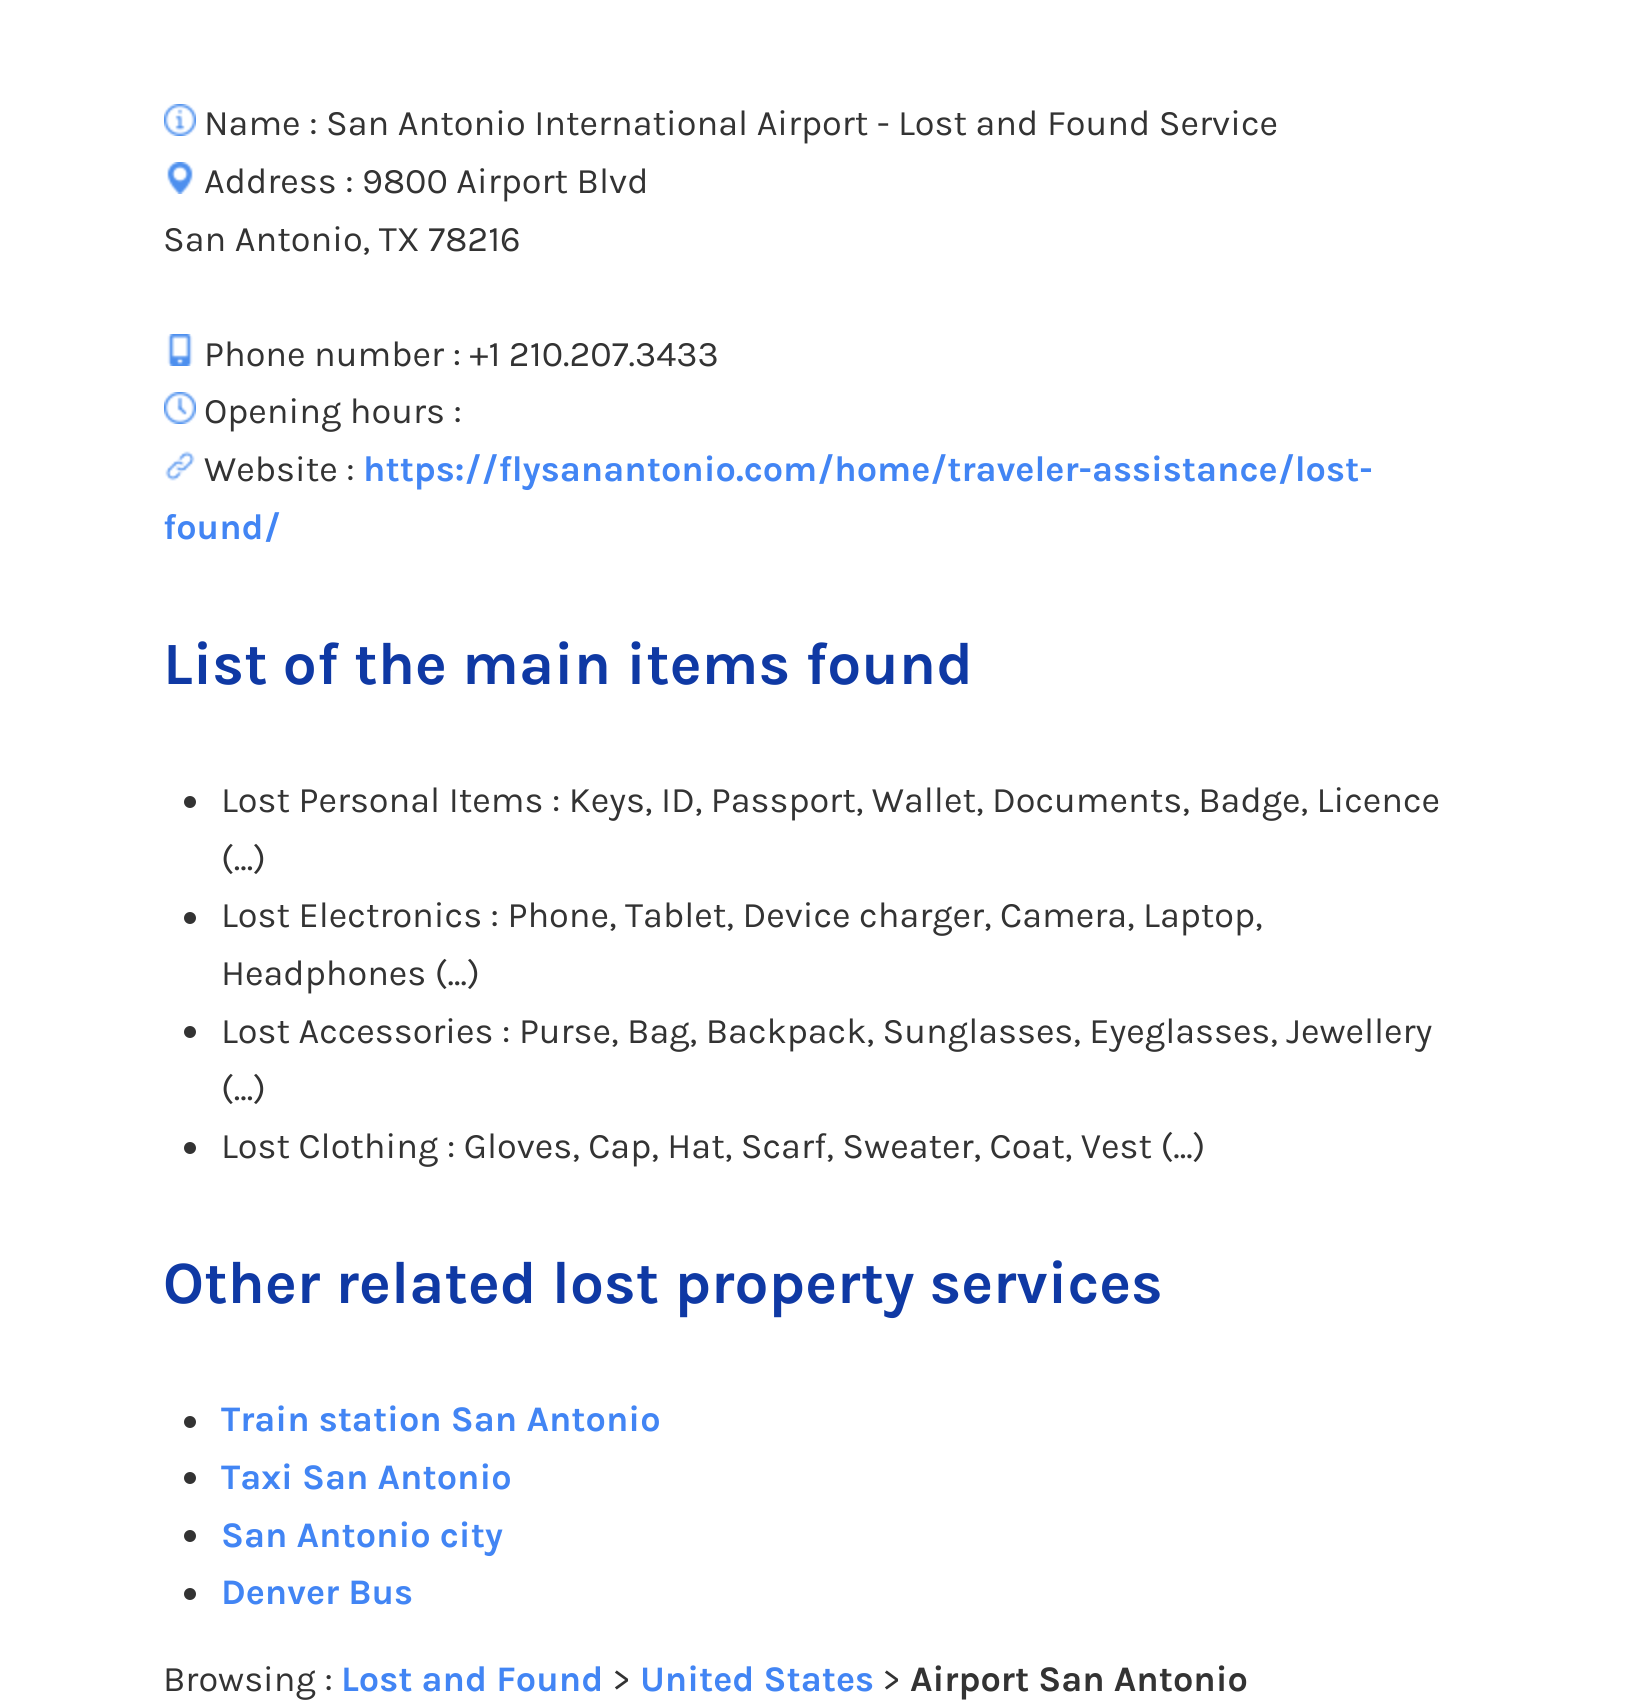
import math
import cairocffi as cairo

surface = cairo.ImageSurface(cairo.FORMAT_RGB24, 1632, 1701)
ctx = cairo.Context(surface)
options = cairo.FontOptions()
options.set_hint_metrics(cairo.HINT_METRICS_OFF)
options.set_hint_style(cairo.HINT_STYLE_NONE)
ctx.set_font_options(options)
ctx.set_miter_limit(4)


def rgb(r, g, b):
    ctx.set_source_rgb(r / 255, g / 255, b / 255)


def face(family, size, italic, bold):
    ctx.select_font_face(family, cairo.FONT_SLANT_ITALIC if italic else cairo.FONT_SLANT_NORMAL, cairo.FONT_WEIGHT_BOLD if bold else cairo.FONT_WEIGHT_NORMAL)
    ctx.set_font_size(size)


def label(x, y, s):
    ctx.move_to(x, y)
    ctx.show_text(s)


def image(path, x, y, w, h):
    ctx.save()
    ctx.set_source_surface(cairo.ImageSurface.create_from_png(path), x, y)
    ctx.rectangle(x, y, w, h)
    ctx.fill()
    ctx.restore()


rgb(255, 255, 255)
ctx.paint()
image('image0.png', 164, 104, 32, 32)
face('Karla', 36, 0, 0)
rgb(51, 51, 51)
label(204, 135, 'Name : San Antonio International Airport - Lost and Found Service')
image('image1.png', 167, 162, 26, 32)
label(204, 193, 'Address : 9800 Airport Blvd')
label(163, 251, 'San Antonio, TX 78216')
image('image2.png', 167, 334, 26, 32)
label(204, 366, 'Phone number : +1 210.207.3433')
image('image3.png', 164, 392, 32, 32)
label(204, 423, 'Opening hours :')
image('image4.png', 165, 451, 30, 30)
label(204, 481, 'Website :')
face('Karla', 36, 0, 1)
rgb(66, 133, 244)
label(363, 481, 'https://flysanantonio.com/home/traveler-assistance/lost-')
label(163, 539, 'found/')
face('Karla', 60, 0, 1)
rgb(15, 57, 164)
label(163, 684, 'List of the main items found')
rgb(51, 51, 51)
ctx.new_path()
ctx.arc(190, 802, 6, 0, 2 * math.pi)
ctx.fill()
face('Karla', 36, 0, 0)
label(221, 812, 'Lost Personal Items : Keys, ID, Passport, Wallet, Documents, Badge, Licence')
label(221, 870, '(...)')
ctx.new_path()
ctx.arc(190, 918, 6, 0, 2 * math.pi)
ctx.fill()
label(221, 927, 'Lost Electronics : Phone, Tablet, Device charger, Camera, Laptop,')
label(221, 985, 'Headphones (...)')
ctx.new_path()
ctx.arc(190, 1032, 6, 0, 2 * math.pi)
ctx.fill()
label(221, 1043, 'Lost Accessories : Purse, Bag, Backpack, Sunglasses, Eyeglasses, Jewellery')
label(221, 1100, '(...)')
ctx.new_path()
ctx.arc(190, 1148, 6, 0, 2 * math.pi)
ctx.fill()
label(221, 1158, 'Lost Clothing : Gloves, Cap, Hat, Scarf, Sweater, Coat, Vest (...)')
face('Karla', 60, 0, 1)
rgb(15, 57, 164)
label(163, 1303, 'Other related lost property services')
rgb(51, 51, 51)
ctx.new_path()
ctx.arc(190, 1422, 6, 0, 2 * math.pi)
ctx.fill()
face('Karla', 36, 0, 1)
rgb(66, 133, 244)
label(221, 1431, 'Train station San Antonio')
rgb(51, 51, 51)
ctx.new_path()
ctx.arc(190, 1478, 6, 0, 2 * math.pi)
ctx.fill()
rgb(66, 133, 244)
label(221, 1489, 'Taxi San Antonio')
rgb(51, 51, 51)
ctx.new_path()
ctx.arc(190, 1536, 6, 0, 2 * math.pi)
ctx.fill()
rgb(66, 133, 244)
label(221, 1547, 'San Antonio city')
rgb(51, 51, 51)
ctx.new_path()
ctx.arc(190, 1594, 6, 0, 2 * math.pi)
ctx.fill()
rgb(66, 133, 244)
label(221, 1604, 'Denver Bus')
face('Karla', 36, 0, 0)
rgb(51, 51, 51)
label(163, 1691, 'Browsing :')
face('Karla', 36, 0, 1)
rgb(66, 133, 244)
label(341, 1691, 'Lost and Found')
face('Karla', 36, 0, 0)
rgb(51, 51, 51)
label(612, 1691, '>')
face('Karla', 36, 0, 1)
rgb(66, 133, 244)
label(640, 1691, 'United States')
face('Karla', 36, 0, 0)
rgb(51, 51, 51)
label(882, 1691, '>')
face('Karla', 36, 0, 1)
label(910, 1691, 'Airport San Antonio')
surface.write_to_png('render.png')
